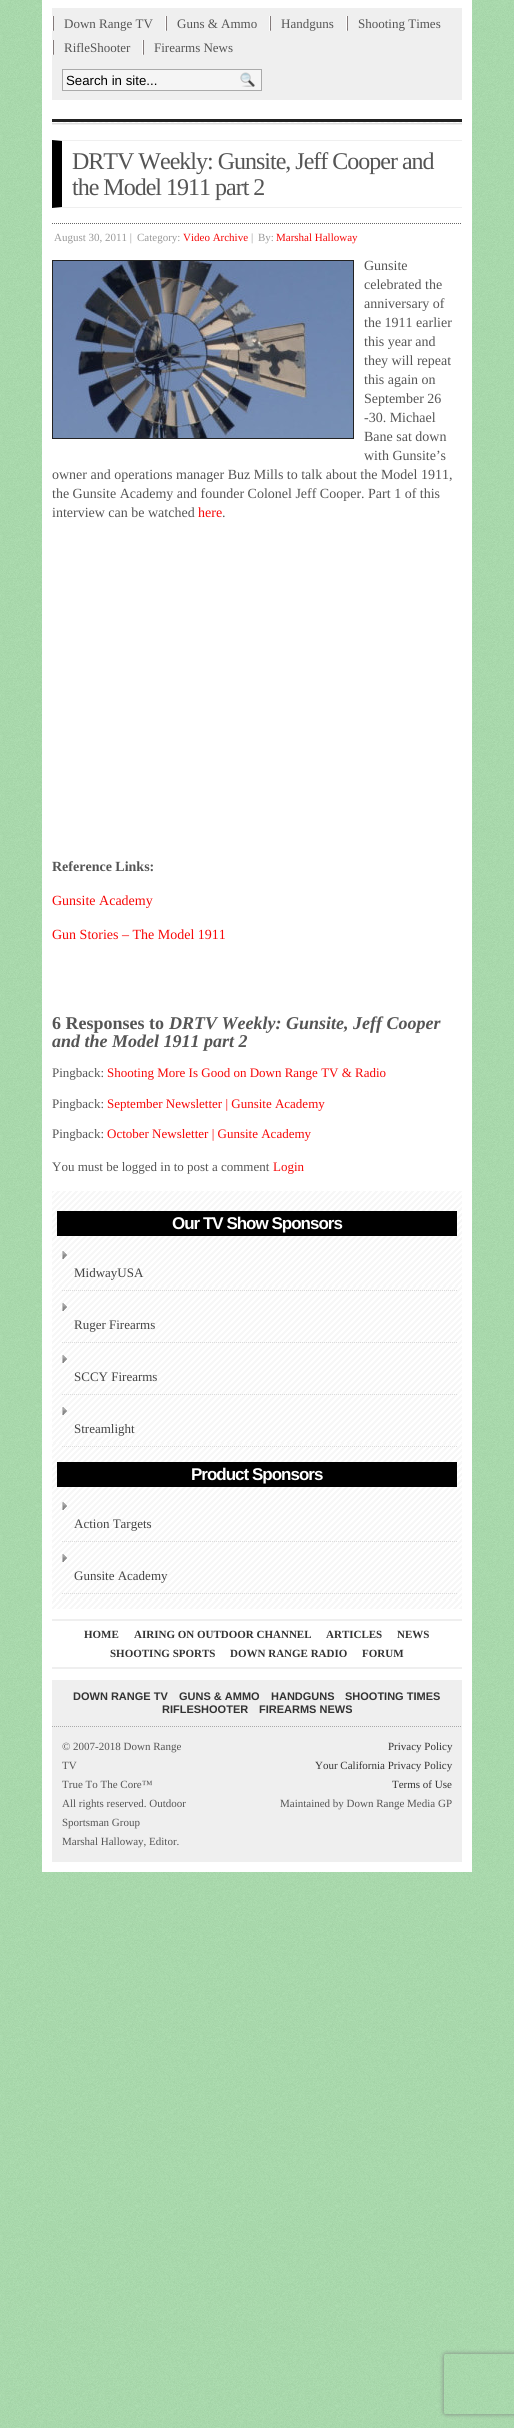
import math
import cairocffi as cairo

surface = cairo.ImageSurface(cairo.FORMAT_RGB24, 514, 2428)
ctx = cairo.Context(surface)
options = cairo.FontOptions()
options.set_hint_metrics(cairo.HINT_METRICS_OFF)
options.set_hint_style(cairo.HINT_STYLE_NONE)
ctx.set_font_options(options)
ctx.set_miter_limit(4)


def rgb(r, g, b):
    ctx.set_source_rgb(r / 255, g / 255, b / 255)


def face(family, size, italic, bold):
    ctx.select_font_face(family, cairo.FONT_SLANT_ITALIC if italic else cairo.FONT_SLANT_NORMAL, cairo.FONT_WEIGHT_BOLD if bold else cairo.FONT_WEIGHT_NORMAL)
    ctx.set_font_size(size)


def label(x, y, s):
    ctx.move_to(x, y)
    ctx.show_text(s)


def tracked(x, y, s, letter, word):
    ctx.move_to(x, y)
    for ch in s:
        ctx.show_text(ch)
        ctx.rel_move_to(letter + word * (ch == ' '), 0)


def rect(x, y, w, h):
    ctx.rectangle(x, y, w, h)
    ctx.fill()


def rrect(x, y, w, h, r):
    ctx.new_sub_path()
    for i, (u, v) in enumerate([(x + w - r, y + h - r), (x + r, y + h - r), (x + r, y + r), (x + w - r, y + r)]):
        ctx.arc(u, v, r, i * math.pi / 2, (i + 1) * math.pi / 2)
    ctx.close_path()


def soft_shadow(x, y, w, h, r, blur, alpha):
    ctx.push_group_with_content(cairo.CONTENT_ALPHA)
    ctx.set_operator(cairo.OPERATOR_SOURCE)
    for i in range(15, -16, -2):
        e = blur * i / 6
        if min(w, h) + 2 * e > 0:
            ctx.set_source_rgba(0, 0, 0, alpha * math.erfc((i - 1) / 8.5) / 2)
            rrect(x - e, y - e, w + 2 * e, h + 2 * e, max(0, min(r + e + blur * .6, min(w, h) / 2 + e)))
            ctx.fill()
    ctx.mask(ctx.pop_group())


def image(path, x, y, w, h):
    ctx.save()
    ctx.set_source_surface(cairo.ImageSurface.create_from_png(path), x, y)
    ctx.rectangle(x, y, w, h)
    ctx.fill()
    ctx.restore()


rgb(255, 255, 255)
ctx.paint()
image('image0.png', 0, 0, 514, 2428)
rgb(255, 255, 255)
rect(42, 0, 430, 1872)
rgb(239, 239, 239)
rect(52, 8, 410, 92)
image('image1.png', 52, 16, 2, 15)
face('Liberation Serif', 13, 0, 0)
rgb(85, 85, 85)
label(64, 28, 'Down Range TV')
image('image1.png', 165, 16, 2, 15)
label(177, 28, 'Guns & Ammo')
image('image1.png', 269, 16, 2, 15)
label(281, 28, 'Handguns')
image('image1.png', 346, 16, 2, 15)
label(358, 28, 'Shooting Times')
image('image1.png', 52, 40, 2, 15)
label(64, 52, 'RifleShooter')
image('image1.png', 142, 40, 2, 15)
label(154, 52, 'Firearms News')
rgb(245, 245, 245)
ctx.rectangle(62.5, 69.5, 199, 21)
ctx.fill_preserve()
rgb(170, 170, 170)
ctx.set_line_width(1)
ctx.stroke()
face('Liberation Sans', 13.25, 0, 0)
rgb(0, 0, 0)
label(66, 85, 'Search in site...')
image('image2.png', 240, 72, 15, 15)
rgb(34, 34, 34)
rect(52, 119, 410, 3)
image('image3.png', 52, 122, 410, 1)
rgb(221, 221, 221)
rect(52, 123, 410, 1)
rgb(239, 239, 239)
rect(52, 124, 410, 1)
ctx.new_path()
ctx.move_to(52, 140)
ctx.line_to(462, 140)
ctx.line_to(462, 141)
ctx.line_to(62, 141)
ctx.close_path()
ctx.fill()
ctx.new_path()
ctx.move_to(462, 208)
ctx.line_to(52, 208)
ctx.line_to(62, 207)
ctx.line_to(462, 207)
ctx.close_path()
ctx.fill()
rgb(0, 0, 0)
ctx.new_path()
ctx.move_to(52, 208)
ctx.line_to(52, 140)
ctx.line_to(62, 141)
ctx.line_to(62, 207)
ctx.close_path()
ctx.fill()
face('Liberation Serif', 24, 0, 0)
rgb(85, 85, 85)
tracked(72, 169, 'DRTV Weekly: Gunsite, Jeff Cooper and', -1, 0)
tracked(72, 195, 'the Model 1911 part 2', -1, 0)
ctx.new_path()
ctx.move_to(52, 223.5)
ctx.line_to(462, 223.5)
rgb(102, 102, 102)
ctx.set_dash([1, 1])
ctx.stroke()
face('Liberation Serif', 11, 0, 0)
rgb(153, 153, 153)
label(54, 241, 'August 30, 2011 |')
label(137, 241, 'Category:')
rgb(247, 8, 8)
label(183, 241, 'Video Archive')
rgb(153, 153, 153)
label(251, 241, '|')
label(258, 241, 'By:')
rgb(247, 8, 8)
label(276, 241, 'Marshal Halloway')
ctx.rectangle(52.5, 260.5, 301, 178)
rgb(34, 34, 34)
ctx.set_dash([])
ctx.stroke()
image('image4.png', 53, 261, 300, 177)
face('Liberation Serif', 14, 0, 0)
rgb(85, 85, 85)
label(364, 270, 'Gunsite')
label(364, 289, 'celebrated the')
label(364, 308, 'anniversary of')
label(364, 327, 'the 1911 earlier')
label(364, 346, 'this year and')
label(364, 365, 'they will repeat')
label(364, 384, 'this again on')
label(364, 403, 'September 26')
label(364, 422, '-30. Michael')
label(364, 441, 'Bane sat down')
label(364, 460, 'with Gunsite’s')
label(52, 479, 'owner and operations manager Buz Mills to talk about the Model 1911,')
label(52, 498, 'the Gunsite Academy and founder Colonel Jeff Cooper. Part 1 of this')
label(52, 517, 'interview can be watched')
rgb(247, 8, 8)
label(198, 517, 'here')
rgb(85, 85, 85)
label(222, 517, '.')
face('Liberation Serif', 14, 0, 1)
label(52, 871, 'Reference Links:')
face('Liberation Serif', 14, 0, 0)
rgb(247, 8, 8)
label(52, 905, 'Gunsite Academy')
label(52, 939, 'Gun Stories – The Model 1911')
face('Liberation Serif', 18, 0, 1)
rgb(85, 85, 85)
label(52, 1029, '6 Responses to')
face('Liberation Serif', 18, 1, 1)
label(169, 1029, 'DRTV Weekly: Gunsite, Jeff Cooper')
label(52, 1047, 'and the Model 1911 part 2')
face('Liberation Serif', 13, 0, 0)
label(52, 1077, 'Pingback:')
rgb(247, 8, 8)
label(107, 1077, 'Shooting More Is Good on Down Range TV & Radio')
rgb(85, 85, 85)
label(52, 1108, 'Pingback:')
rgb(247, 8, 8)
label(107, 1108, 'September Newsletter | Gunsite Academy')
rgb(85, 85, 85)
label(52, 1138, 'Pingback:')
rgb(247, 8, 8)
label(107, 1138, 'October Newsletter | Gunsite Academy')
rgb(85, 85, 85)
label(52, 1171, 'You must be logged in to post a comment')
rgb(247, 8, 8)
label(273, 1171, 'Login')
image('image5.png', 52, 1191, 410, 418)
rgb(0, 0, 0)
rect(57, 1211, 400, 25)
face('Liberation Sans', 17, 0, 1)
rgb(255, 255, 255)
tracked(172, 1229, 'Our TV Show Sponsors', -1, 0)
image('image6.png', 62, 1251, 5, 8)
ctx.new_path()
ctx.move_to(62, 1290.5)
ctx.line_to(457, 1290.5)
rgb(221, 221, 221)
ctx.set_dash([1, 1])
ctx.stroke()
face('Liberation Serif', 13, 0, 0)
rgb(68, 68, 68)
label(74, 1277, 'MidwayUSA')
image('image7.png', 62, 1303, 5, 8)
ctx.new_path()
ctx.move_to(62, 1342.5)
ctx.line_to(457, 1342.5)
rgb(221, 221, 221)
ctx.stroke()
rgb(68, 68, 68)
label(74, 1329, 'Ruger Firearms')
image('image8.png', 62, 1355, 5, 8)
ctx.new_path()
ctx.move_to(62, 1394.5)
ctx.line_to(457, 1394.5)
rgb(221, 221, 221)
ctx.stroke()
rgb(68, 68, 68)
label(74, 1381, 'SCCY Firearms')
image('image9.png', 62, 1407, 5, 8)
ctx.new_path()
ctx.move_to(62, 1446.5)
ctx.line_to(457, 1446.5)
rgb(221, 221, 221)
ctx.stroke()
rgb(68, 68, 68)
label(74, 1433, 'Streamlight')
rgb(0, 0, 0)
rect(57, 1462, 400, 25)
face('Liberation Sans', 17, 0, 1)
rgb(255, 255, 255)
tracked(191, 1480, 'Product Sponsors', -1, 0)
image('image7.png', 62, 1502, 5, 8)
ctx.new_path()
ctx.move_to(62, 1541.5)
ctx.line_to(457, 1541.5)
rgb(221, 221, 221)
ctx.stroke()
face('Liberation Serif', 13, 0, 0)
rgb(68, 68, 68)
label(74, 1528, 'Action Targets')
image('image8.png', 62, 1554, 5, 8)
ctx.new_path()
ctx.move_to(62, 1593.5)
ctx.line_to(457, 1593.5)
rgb(221, 221, 221)
ctx.stroke()
rgb(68, 68, 68)
label(74, 1580, 'Gunsite Academy')
rgb(239, 239, 239)
rect(52, 1619, 410, 2)
rect(52, 1667, 410, 2)
face('Liberation Serif', 11, 0, 1)
rgb(51, 51, 51)
label(84, 1638, 'HOME')
label(134, 1638, 'AIRING ON OUTDOOR CHANNEL')
label(326, 1638, 'ARTICLES')
label(397, 1638, 'NEWS')
label(110, 1657, 'SHOOTING SPORTS')
label(230, 1657, 'DOWN RANGE RADIO')
label(362, 1657, 'FORUM')
rgb(239, 239, 239)
rect(52, 1680, 410, 182)
face('Liberation Sans', 11, 0, 1)
rgb(51, 51, 51)
label(73, 1700, 'DOWN RANGE TV')
label(179, 1700, 'GUNS & AMMO')
label(271, 1700, 'HANDGUNS')
label(345, 1700, 'SHOOTING TIMES')
label(162, 1713, 'RIFLESHOOTER')
label(259, 1713, 'FIREARMS NEWS')
ctx.new_path()
ctx.move_to(52, 1726.5)
ctx.line_to(462, 1726.5)
rgb(170, 170, 170)
ctx.stroke()
face('Liberation Serif', 11, 0, 0)
rgb(85, 85, 85)
label(62, 1750, '© 2007-2018 Down Range')
label(62, 1769, 'TV')
label(62, 1788, 'True To The Core™')
label(62, 1807, 'All rights reserved. Outdoor')
label(62, 1826, 'Sportsman Group')
label(62, 1845, 'Marshal Halloway, Editor.')
rgb(51, 51, 51)
label(388, 1750, 'Privacy Policy')
label(315, 1769, 'Your California Privacy Policy')
label(392, 1788, 'Terms of Use')
rgb(85, 85, 85)
label(280, 1807, 'Maintained by Down Range Media GP')
ctx.save()
ctx.set_fill_rule(cairo.FILL_RULE_EVEN_ODD)
ctx.new_path()
ctx.move_to(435, 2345)
ctx.line_to(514, 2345)
ctx.line_to(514, 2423)
ctx.line_to(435, 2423)
ctx.close_path()
ctx.move_to(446, 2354)
ctx.line_to(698, 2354)
ctx.curve_to(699, 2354, 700, 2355, 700, 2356)
ctx.line_to(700, 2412)
ctx.curve_to(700, 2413, 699, 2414, 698, 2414)
ctx.line_to(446, 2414)
ctx.curve_to(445, 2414, 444, 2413, 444, 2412)
ctx.line_to(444, 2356)
ctx.curve_to(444, 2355, 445, 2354, 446, 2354)
ctx.close_path()
ctx.clip()
rgb(128, 128, 128)
soft_shadow(444, 2354, 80, 60, 2, 2.5, 1)
ctx.restore()
surface.write_to_png('render.png')
